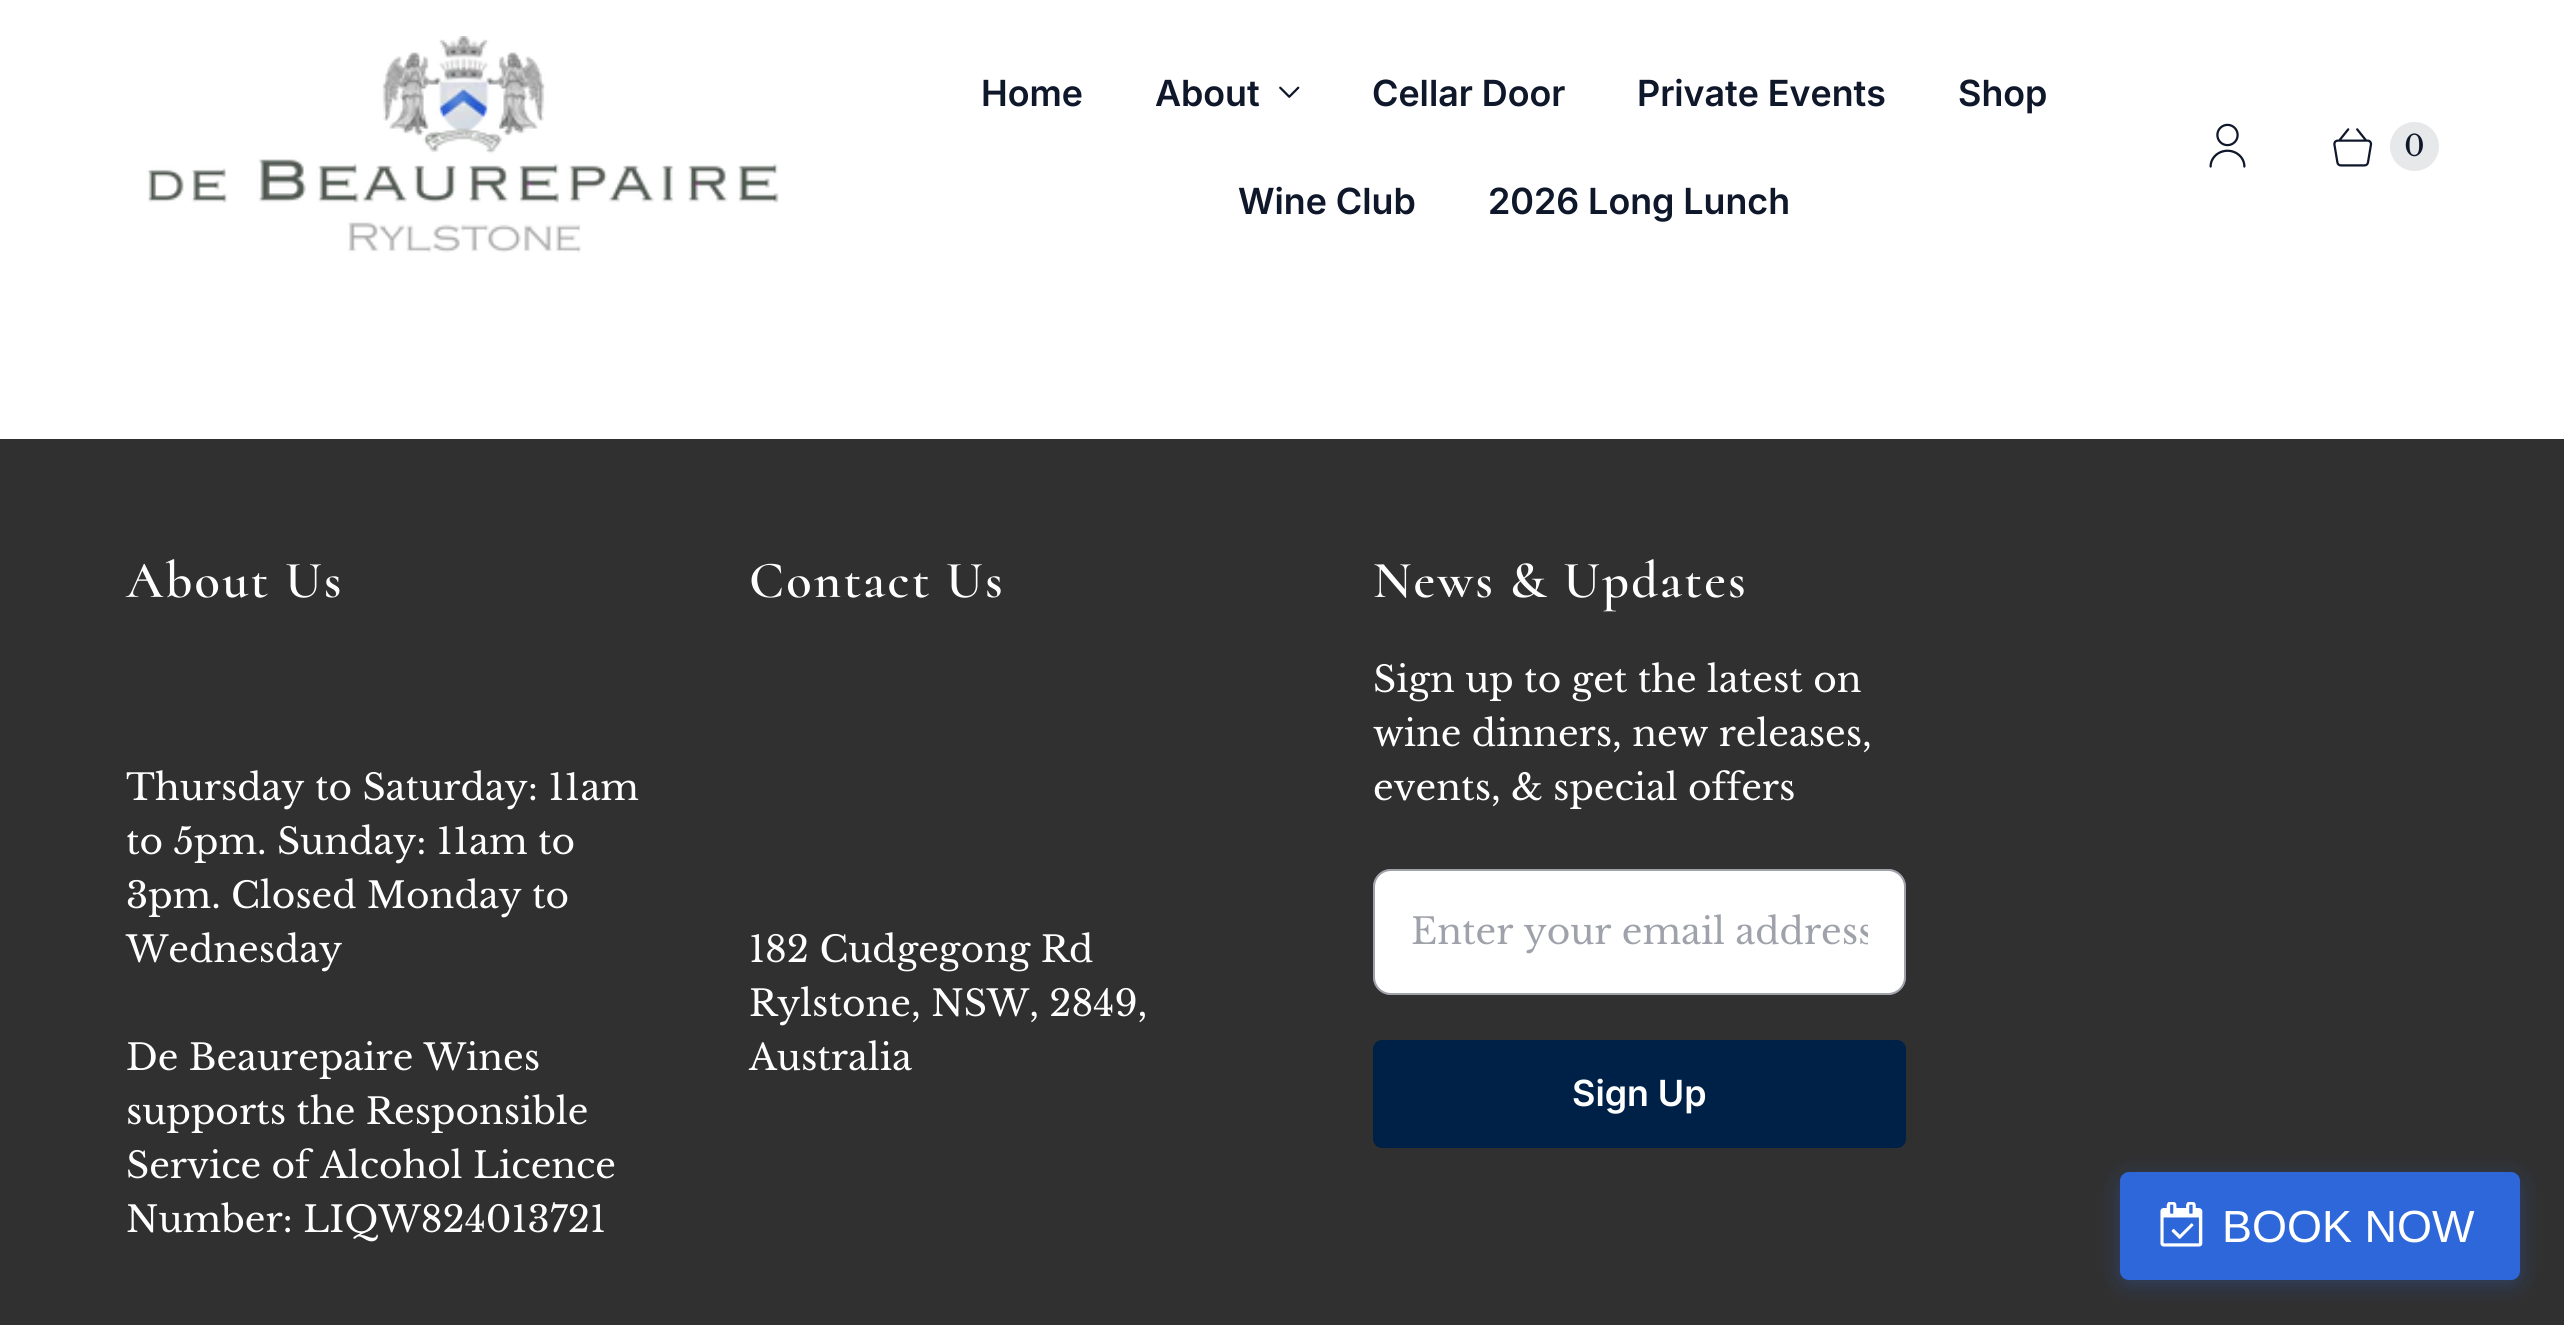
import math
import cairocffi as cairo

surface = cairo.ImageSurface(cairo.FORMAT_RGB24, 2564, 1325)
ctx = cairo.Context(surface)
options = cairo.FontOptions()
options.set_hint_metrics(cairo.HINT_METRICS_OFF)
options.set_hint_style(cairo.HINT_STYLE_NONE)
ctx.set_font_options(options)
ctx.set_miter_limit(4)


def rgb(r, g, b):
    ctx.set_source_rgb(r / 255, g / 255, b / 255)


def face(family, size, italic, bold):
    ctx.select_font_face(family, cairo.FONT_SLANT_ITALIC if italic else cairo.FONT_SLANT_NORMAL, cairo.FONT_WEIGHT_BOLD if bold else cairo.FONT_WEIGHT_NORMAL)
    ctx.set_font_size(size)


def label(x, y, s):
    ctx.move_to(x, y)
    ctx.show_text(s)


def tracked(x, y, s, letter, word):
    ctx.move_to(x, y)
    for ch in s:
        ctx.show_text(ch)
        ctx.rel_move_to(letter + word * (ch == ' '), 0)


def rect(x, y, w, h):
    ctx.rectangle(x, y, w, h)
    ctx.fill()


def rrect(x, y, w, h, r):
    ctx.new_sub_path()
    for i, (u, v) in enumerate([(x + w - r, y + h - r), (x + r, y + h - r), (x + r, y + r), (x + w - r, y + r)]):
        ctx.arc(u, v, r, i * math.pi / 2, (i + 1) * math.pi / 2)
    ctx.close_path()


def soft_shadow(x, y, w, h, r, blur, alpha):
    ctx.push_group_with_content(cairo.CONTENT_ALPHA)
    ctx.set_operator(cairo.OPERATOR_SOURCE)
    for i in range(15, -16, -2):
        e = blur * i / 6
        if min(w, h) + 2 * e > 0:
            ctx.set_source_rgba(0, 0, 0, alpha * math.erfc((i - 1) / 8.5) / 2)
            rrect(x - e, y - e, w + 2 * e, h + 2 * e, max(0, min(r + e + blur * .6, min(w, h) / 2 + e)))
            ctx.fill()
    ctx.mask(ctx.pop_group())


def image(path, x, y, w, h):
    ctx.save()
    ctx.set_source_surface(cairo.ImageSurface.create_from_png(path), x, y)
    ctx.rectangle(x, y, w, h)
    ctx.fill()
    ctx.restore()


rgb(255, 255, 255)
ctx.paint()
image('image0.png', 147, 36, 632, 217)
face('Inter SemiBold', 36, 0, 0)
rgb(15, 23, 42)
label(981, 106, 'Home')
label(1155, 106, 'About')
image('image1.png', 1279, 86, 21, 12)
label(1372, 106, 'Cellar Door')
label(1637, 106, 'Private Events')
label(1958, 106, 'Shop')
label(1238, 214, 'Wine Club')
label(1488, 214, '2026 Long Lunch')
image('image2.png', 2209, 123, 37, 45)
image('image3.png', 2333, 128, 40, 39)
rgb(231, 232, 234)
ctx.arc(2414.5, 146.5, 24.5, 0, 2 * math.pi)
ctx.fill()
face('Libre Baskerville', 29, 0, 0)
rgb(15, 23, 42)
label(2404, 156, '0')
rgb(48, 48, 48)
rect(0, 439, 2564, 886)
face('Cormorant SemiBold', 52.25, 0, 0)
rgb(255, 255, 255)
tracked(126, 597, 'About Us', 2.25, 0)
face('Libre Baskerville', 36, 0, 0)
label(126, 800, 'Thursday to Saturday: 11am')
label(126, 854, 'to 5pm. Sunday: 11am to')
label(126, 908, '3pm. Closed Monday to')
label(126, 962, 'Wednesday')
label(126, 1070, 'De Beaurepaire Wines')
label(126, 1124, 'supports the Responsible')
label(126, 1178, 'Service of Alcohol Licence')
label(126, 1232, 'Number: LIQW824013721')
face('Cormorant SemiBold', 52.25, 0, 0)
tracked(749, 597, 'Contact Us', 2.25, 0)
face('Libre Baskerville', 36, 0, 0)
label(749, 962, '182 Cudgegong Rd')
label(749, 1016, 'Rylstone, NSW, 2849,')
label(749, 1070, 'Australia')
face('Cormorant SemiBold', 52.25, 0, 0)
tracked(1373, 597, 'News & Updates', 2.25, 0)
face('Libre Baskerville', 36, 0, 0)
label(1373, 692, 'Sign up to get the latest on')
label(1373, 746, 'wine dinners, new releases,')
label(1373, 800, 'events, & special offers')
rrect(1373, 869, 533, 126, 18)
ctx.fill()
rrect(1374, 870, 531, 124, 17)
ctx.set_source_rgba(0.059, 0.09, 0.165, 0.4)
ctx.stroke()
ctx.save()
ctx.rectangle(1411, 909, 457, 45)
ctx.clip()
rgb(159, 162, 170)
label(1411, 944, 'Enter your email address')
ctx.restore()
rgb(0, 33, 71)
rrect(1374, 1041, 531, 106, 8)
ctx.fill_preserve()
ctx.stroke()
face('Inter SemiBold', 36, 0, 0)
rgb(255, 255, 255)
label(1572, 1106, 'Sign Up')
rgb(46, 103, 218)
soft_shadow(2120, 1177, 400, 108, 9, 11, 0.3)
rgb(46, 103, 218)
rrect(2120, 1172, 400, 108, 9)
ctx.fill()
image('image4.png', 2160, 1202, 43, 45)
face('Liberation Sans', 45, 0, 0)
rgb(255, 255, 255)
label(2222, 1242, 'BOOK NOW')
surface.write_to_png('render.png')
